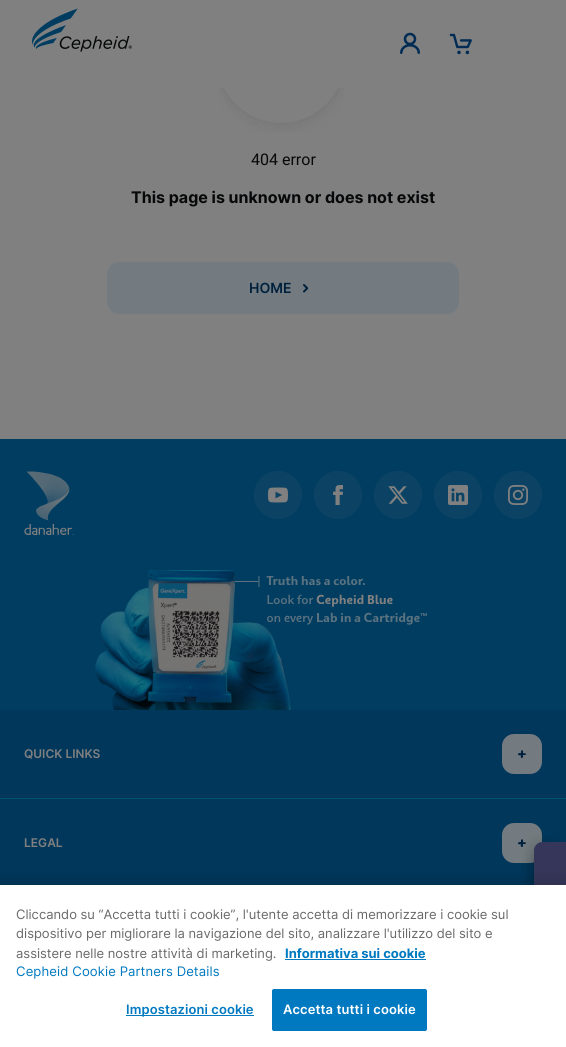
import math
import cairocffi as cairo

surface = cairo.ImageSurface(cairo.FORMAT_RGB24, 566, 1047)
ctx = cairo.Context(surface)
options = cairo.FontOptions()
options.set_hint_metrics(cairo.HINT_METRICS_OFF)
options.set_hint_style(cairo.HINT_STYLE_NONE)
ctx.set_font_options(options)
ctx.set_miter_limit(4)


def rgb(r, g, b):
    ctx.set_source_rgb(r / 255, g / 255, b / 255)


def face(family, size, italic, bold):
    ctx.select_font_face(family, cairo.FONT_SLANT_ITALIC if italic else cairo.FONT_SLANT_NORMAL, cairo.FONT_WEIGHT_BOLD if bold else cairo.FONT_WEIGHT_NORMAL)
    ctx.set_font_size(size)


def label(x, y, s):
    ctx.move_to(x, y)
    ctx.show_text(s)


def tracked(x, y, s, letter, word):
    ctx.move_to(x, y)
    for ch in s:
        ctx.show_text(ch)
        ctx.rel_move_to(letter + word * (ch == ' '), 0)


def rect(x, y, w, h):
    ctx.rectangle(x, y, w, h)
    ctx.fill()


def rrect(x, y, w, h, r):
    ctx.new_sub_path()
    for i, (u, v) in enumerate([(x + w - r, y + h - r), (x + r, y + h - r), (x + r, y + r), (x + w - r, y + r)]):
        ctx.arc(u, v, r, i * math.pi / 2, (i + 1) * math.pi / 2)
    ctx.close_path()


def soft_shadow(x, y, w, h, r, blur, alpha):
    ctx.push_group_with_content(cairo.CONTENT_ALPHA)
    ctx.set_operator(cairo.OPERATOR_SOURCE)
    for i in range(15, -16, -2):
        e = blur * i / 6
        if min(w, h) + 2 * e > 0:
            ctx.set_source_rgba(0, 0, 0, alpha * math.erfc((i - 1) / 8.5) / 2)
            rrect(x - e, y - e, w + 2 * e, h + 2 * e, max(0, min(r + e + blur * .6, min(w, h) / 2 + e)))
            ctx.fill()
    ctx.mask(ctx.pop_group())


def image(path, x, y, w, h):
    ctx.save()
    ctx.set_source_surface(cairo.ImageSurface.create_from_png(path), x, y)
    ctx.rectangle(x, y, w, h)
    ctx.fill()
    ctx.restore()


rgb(128, 128, 128)
ctx.paint()
image('image0.png', 32, 8, 100, 44)
image('image1.png', 400, 32, 20, 22)
image('image2.png', 449, 33, 23, 22)
image('image3.png', 218, 88, 126, 45)
face('Roboto', 16, 0, 0)
rgb(7, 8, 9)
label(251, 165, '404 error')
face('Inter', 16, 0, 1)
label(131, 203, 'This page is unknown or does not exist')
rgb(115, 123, 128)
rrect(107, 262, 352, 52, 12)
ctx.fill()
face('Inter SemiBold', 14, 0, 0)
rgb(0, 33, 61)
label(249, 293, 'HOME')
image('image4.png', 303, 284, 6, 9)
rgb(0, 61, 97)
rect(0, 439, 566, 271)
image('image5.png', 24, 471, 50, 64)
rgb(12, 67, 100)
ctx.arc(278, 495, 24, 0, 2 * math.pi)
ctx.fill()
image('image6.png', 268, 487, 20, 16)
ctx.arc(338, 495, 24, 0, 2 * math.pi)
ctx.fill()
image('image7.png', 333, 485, 10, 20)
ctx.arc(398, 495, 24, 0, 2 * math.pi)
ctx.fill()
image('image8.png', 388, 486, 20, 18)
ctx.arc(458, 495, 24, 0, 2 * math.pi)
ctx.fill()
image('image9.png', 448, 485, 20, 20)
ctx.arc(518, 495, 24, 0, 2 * math.pi)
ctx.fill()
image('image10.png', 508, 485, 20, 20)
image('image11.png', 95, 570, 196, 140)
image('image12.png', 234, 576, 193, 49)
rgb(0, 55, 91)
rect(0, 710, 566, 88)
rgb(0, 83, 109)
rect(0, 798, 566, 1)
face('Inter SemiBold', 12, 0, 0)
rgb(128, 128, 128)
label(24, 758, 'QUICK LINKS')
rgb(115, 123, 128)
rrect(502, 734, 40, 40, 12)
ctx.fill()
rgb(0, 33, 61)
ctx.new_path()
ctx.move_to(525, 755)
ctx.line_to(522, 755)
ctx.curve_to(521, 755, 518.5, 756, 518, 754.5)
ctx.curve_to(517.5, 752.5, 522, 753, 523, 753)
ctx.line_to(525.5, 753.5)
ctx.curve_to(526.5, 753.5, 526, 755, 525, 755)
ctx.close_path()
ctx.fill()
ctx.new_path()
ctx.move_to(523, 751)
ctx.line_to(523, 754)
ctx.curve_to(523, 755, 523.5, 758, 522, 758)
ctx.curve_to(520, 758.5, 521, 754, 521, 753)
ctx.line_to(521, 751)
ctx.curve_to(521.5, 750, 523, 750, 523, 751)
ctx.close_path()
ctx.fill()
rgb(0, 55, 91)
rect(0, 799, 566, 86)
rgb(128, 128, 128)
label(24, 847, 'LEGAL')
rgb(115, 123, 128)
rrect(502, 823, 40, 40, 12)
ctx.fill()
rgb(0, 33, 61)
ctx.new_path()
ctx.move_to(525, 844)
ctx.line_to(522, 844)
ctx.curve_to(521, 844, 518.5, 845, 518, 843.5)
ctx.curve_to(517.5, 841.5, 522, 842, 523, 842)
ctx.line_to(525.5, 842.5)
ctx.curve_to(526.5, 842.5, 526, 844, 525, 844)
ctx.close_path()
ctx.fill()
ctx.new_path()
ctx.move_to(523, 840)
ctx.line_to(523, 843)
ctx.curve_to(523, 844, 523.5, 847, 522, 847)
ctx.curve_to(520, 847.5, 521, 843, 521, 842)
ctx.line_to(521, 840)
ctx.curve_to(521.5, 839, 523, 839, 523, 840)
ctx.close_path()
ctx.fill()
rgb(0, 0, 0)
soft_shadow(530, 842, 32, 105, 8, 6, 0.14)
soft_shadow(530, 857, 32, 90, 8, 6, 0.14)
rgb(54, 54, 90)
ctx.new_path()
ctx.move_to(566, 947)
ctx.line_to(542, 947)
ctx.curve_to(538, 947, 534, 943, 534, 939)
ctx.line_to(534, 850)
ctx.curve_to(534, 846, 538, 842, 542, 842)
ctx.line_to(566, 842)
ctx.close_path()
ctx.fill()
rgb(0, 0, 0)
soft_shadow(0, 885, 566, 162, 0, 9, 0.2)
rgb(255, 255, 255)
rect(0, 885, 566, 162)
face('Inter', 13, 0, 0)
rgb(105, 105, 105)
label(16, 919, 'Cliccando su “Accetta tutti i cookie”, l\'utente accetta di memorizzare i cookie sul')
label(16, 938, 'dispositivo per migliorare la navigazione del sito, analizzare l\'utilizzo del sito e')
label(16, 958, 'assistere nelle nostre attività di marketing.')
face('Inter', 13, 0, 1)
rgb(0, 121, 193)
label(285, 958, 'Informativa sui cookie')
rect(285, 959, 141, 1)
face('Inter', 13.1, 0, 0)
tracked(16, 976, 'Cepheid Cookie Partners Details', 0.1, 0)
rect(126, 1015, 128, 1)
face('Inter SemiBold', 13, 0, 0)
tracked(126, 1014, 'Impostazioni cookie', 0.1, 0)
rrect(272.5, 989.5, 154, 41, 1.5)
ctx.fill_preserve()
ctx.set_line_width(1)
ctx.stroke()
rgb(255, 255, 255)
tracked(283, 1014, 'Accetta tutti i cookie', 0.1, 0)
surface.write_to_png('render.png')
